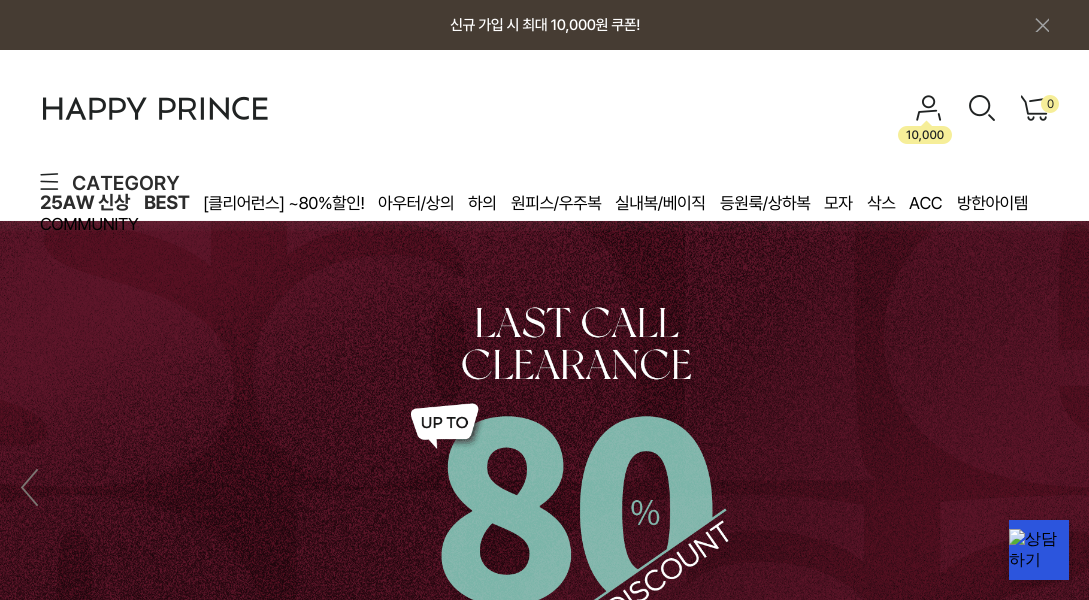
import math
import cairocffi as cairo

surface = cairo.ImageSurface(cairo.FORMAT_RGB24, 1089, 600)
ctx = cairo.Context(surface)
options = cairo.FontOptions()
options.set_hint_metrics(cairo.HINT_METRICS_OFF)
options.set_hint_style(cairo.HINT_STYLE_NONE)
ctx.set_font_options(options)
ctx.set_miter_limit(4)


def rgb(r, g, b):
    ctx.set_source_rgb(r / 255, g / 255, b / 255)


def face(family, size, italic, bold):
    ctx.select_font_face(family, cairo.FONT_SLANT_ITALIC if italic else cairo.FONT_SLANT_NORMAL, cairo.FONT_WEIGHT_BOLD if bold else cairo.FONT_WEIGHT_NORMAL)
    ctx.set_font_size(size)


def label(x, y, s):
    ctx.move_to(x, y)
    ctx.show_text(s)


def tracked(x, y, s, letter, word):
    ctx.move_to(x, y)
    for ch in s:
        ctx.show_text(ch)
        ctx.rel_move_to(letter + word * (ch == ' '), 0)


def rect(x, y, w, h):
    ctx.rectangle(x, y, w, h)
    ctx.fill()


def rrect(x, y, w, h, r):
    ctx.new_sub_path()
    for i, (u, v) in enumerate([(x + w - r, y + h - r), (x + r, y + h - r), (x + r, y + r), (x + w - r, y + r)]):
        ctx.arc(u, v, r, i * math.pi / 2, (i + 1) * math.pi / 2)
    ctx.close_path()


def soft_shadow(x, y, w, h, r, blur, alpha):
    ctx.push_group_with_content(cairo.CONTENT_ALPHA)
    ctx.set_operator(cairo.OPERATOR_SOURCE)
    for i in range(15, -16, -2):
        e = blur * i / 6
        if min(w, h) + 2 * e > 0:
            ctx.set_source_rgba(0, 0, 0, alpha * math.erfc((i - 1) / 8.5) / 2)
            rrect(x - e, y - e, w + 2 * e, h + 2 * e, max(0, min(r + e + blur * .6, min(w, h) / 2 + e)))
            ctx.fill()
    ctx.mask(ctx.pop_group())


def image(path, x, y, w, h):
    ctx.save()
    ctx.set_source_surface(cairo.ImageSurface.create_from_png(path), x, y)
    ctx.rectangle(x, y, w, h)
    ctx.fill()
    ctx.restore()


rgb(255, 255, 255)
ctx.paint()
image('image6.png', 0, 221, 1089, 379)
ctx.save()
ctx.rectangle(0, 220, 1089, 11)
ctx.clip()
rgb(179, 173, 171)
soft_shadow(0, 0, 1089, 220, 0, 10, 0.15)
ctx.restore()
rgb(70, 60, 51)
rect(0, 0, 1089, 50)
face('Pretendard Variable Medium', 15, 0, 0)
rgb(255, 255, 255)
tracked(450, 30, '신규 가입 시 최대 10,000원 쿠폰!', -0.45, 0)
image('image0.png', 1035, 18, 14, 14)
image('image1.png', 43, 96, 225, 24)
image('image2.png', 969, 95, 26, 26)
image('image3.png', 1021, 95, 27, 26)
rgb(246, 238, 153)
ctx.arc(1050, 104, 9, 0, 2 * math.pi)
ctx.fill()
face('Pretendard Variable', 12, 0, 0)
rgb(32, 35, 35)
label(1047, 108, '0')
image('image4.png', 916, 95, 26, 26)
rgb(246, 238, 153)
rrect(898, 126, 54, 18, 9)
ctx.fill()
ctx.new_path()
ctx.move_to(926.5, 120.5)
ctx.line_to(933.5, 127.5)
ctx.line_to(926.5, 134.5)
ctx.line_to(919.5, 127.5)
ctx.close_path()
ctx.fill()
face('Pretendard Variable Medium', 12, 0, 0)
rgb(32, 35, 35)
label(906, 139, '10,000')
image('image5.png', 40, 173, 19, 17)
face('Pretendard Variable SemiBold', 20, 0, 0)
rgb(44, 44, 44)
label(72, 190, 'CATEGORY')
face('Pretendard Variable', 19, 0, 1)
tracked(40, 209, '25AW 신상', -0.5, 0)
tracked(144, 209, 'BEST', -0.5, 0)
face('Pretendard Variable', 17, 0, 0)
rgb(0, 0, 0)
tracked(203, 209, '[클리어런스] ~80%할인!', -0.5, 0)
tracked(378, 209, '아우터/상의', -0.5, 0)
tracked(468, 209, '하의', -0.5, 0)
tracked(511, 209, '원피스/우주복', -0.5, 0)
tracked(615, 209, '실내복/베이직', -0.5, 0)
tracked(720, 209, '등원룩/상하복', -0.5, 0)
tracked(824, 209, '모자', -0.5, 0)
tracked(867, 209, '삭스', -0.5, 0)
tracked(909, 209, 'ACC', -0.5, 0)
tracked(957, 209, '방한아이템', -0.5, 0)
tracked(40, 230, 'COMMUNITY', -0.5, 0)
ctx.new_path()
ctx.move_to(37, 470)
ctx.line_to(22, 487.5)
ctx.line_to(37, 505)
rgb(123, 118, 114)
ctx.set_line_width(1.8)
ctx.set_line_cap(cairo.LINE_CAP_SQUARE)
ctx.stroke()
image('image7.png', 1004, 518, 69, 69)
surface.write_to_png('render.png')
